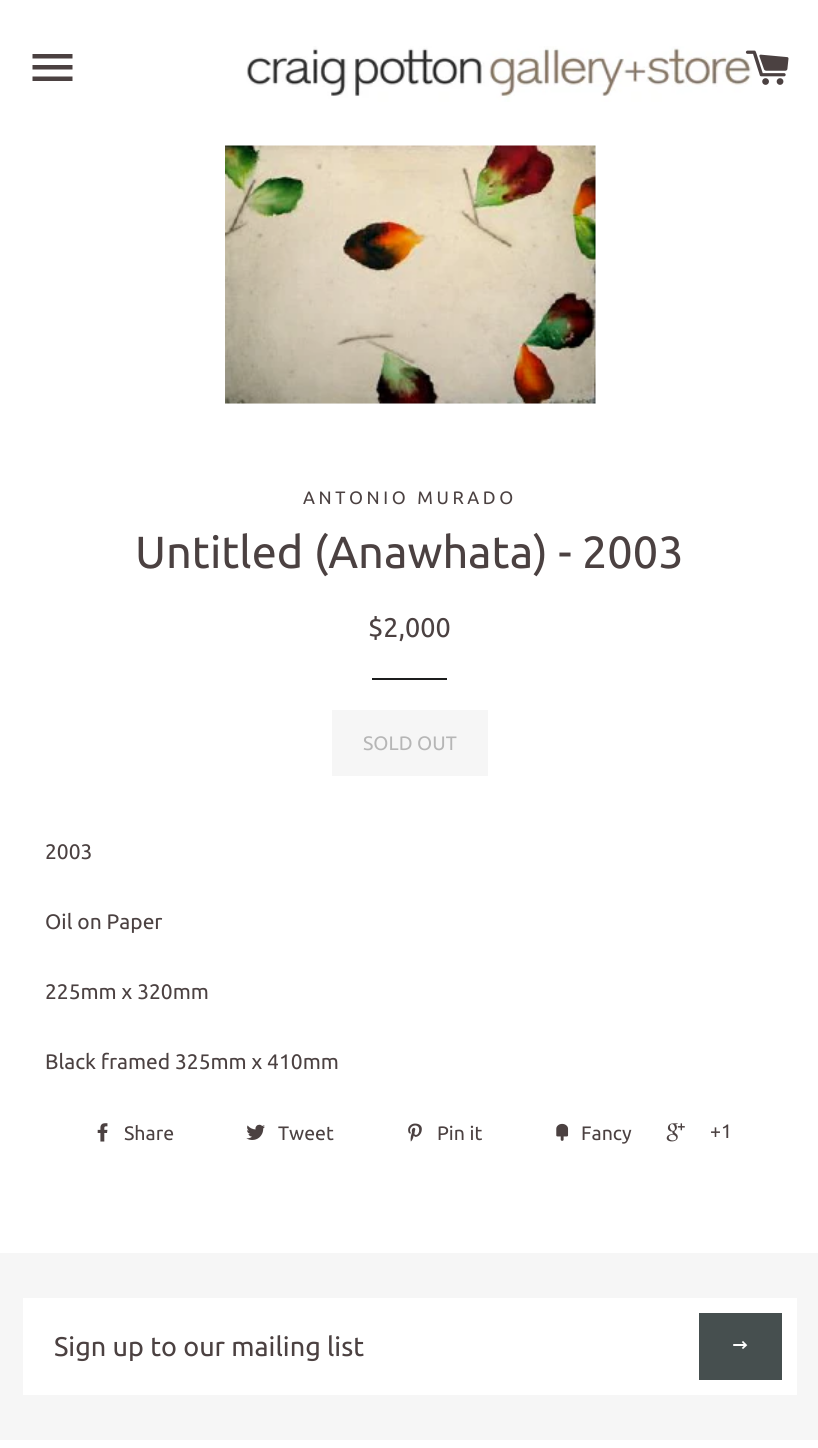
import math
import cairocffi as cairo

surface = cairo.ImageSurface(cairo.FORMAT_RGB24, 818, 1448)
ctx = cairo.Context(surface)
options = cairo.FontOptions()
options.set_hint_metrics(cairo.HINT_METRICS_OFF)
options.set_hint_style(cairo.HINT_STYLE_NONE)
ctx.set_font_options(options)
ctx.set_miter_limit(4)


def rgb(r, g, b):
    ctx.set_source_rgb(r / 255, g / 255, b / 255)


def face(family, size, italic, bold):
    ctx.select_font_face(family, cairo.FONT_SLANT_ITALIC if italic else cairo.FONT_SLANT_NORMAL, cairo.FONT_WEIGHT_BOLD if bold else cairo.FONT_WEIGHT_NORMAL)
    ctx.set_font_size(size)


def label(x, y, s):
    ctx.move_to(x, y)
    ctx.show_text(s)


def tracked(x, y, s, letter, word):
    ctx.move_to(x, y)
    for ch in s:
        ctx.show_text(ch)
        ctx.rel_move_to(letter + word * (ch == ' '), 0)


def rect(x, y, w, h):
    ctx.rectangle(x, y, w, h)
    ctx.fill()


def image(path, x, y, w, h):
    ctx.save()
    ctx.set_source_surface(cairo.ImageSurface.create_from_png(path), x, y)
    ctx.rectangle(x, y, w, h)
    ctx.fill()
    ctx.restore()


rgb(255, 255, 255)
ctx.paint()
rgb(75, 65, 65)
ctx.new_path()
ctx.move_to(32.5, 54)
ctx.line_to(72.5, 54)
ctx.line_to(72.5, 58.5)
ctx.line_to(32.5, 58.5)
ctx.close_path()
ctx.move_to(32.5, 65)
ctx.line_to(72.5, 65)
ctx.line_to(72.5, 69.5)
ctx.line_to(32.5, 69.5)
ctx.close_path()
ctx.move_to(32.5, 76.5)
ctx.line_to(72.5, 76.5)
ctx.line_to(72.5, 81)
ctx.line_to(32.5, 81)
ctx.close_path()
ctx.fill()
image('image0.png', 246, 46, 506, 56)
image('image1.png', 745, 50, 44, 35)
rgb(247, 247, 247)
rect(225, 146, 371, 258)
image('image2.png', 225, 145, 371, 259)
face('Ubuntu', 18, 0, 0)
rgb(75, 65, 65)
tracked(303, 504, 'ANTONIO MURADO', 3.6, 0)
face('Ubuntu', 45, 0, 0)
label(135, 568, 'Untitled (Anawhata) - 2003')
face('Ubuntu', 27, 0, 0)
label(368, 637, '$2,000')
rgb(28, 29, 29)
rect(372, 678, 75, 2)
rgb(246, 246, 246)
rect(332, 710, 156, 66)
face('Ubuntu', 19.5, 0, 0)
rgb(182, 182, 182)
label(363, 750, 'SOLD OUT')
face('Ubuntu', 21, 0, 0)
rgb(75, 65, 65)
label(45, 859, '2003')
label(45, 929, 'Oil on Paper')
label(45, 999, '225mm x 320mm')
label(45, 1069, 'Black framed 325mm x 410mm')
image('image3.png', 97, 1123, 11, 19)
face('Ubuntu', 19.5, 0, 0)
label(124, 1140, 'Share')
image('image4.png', 246, 1124, 19, 16)
label(278, 1140, 'Tweet')
image('image5.png', 408, 1123, 14, 19)
label(437, 1140, 'Pin it')
image('image6.png', 556, 1123, 13, 18)
label(581, 1140, 'Fancy')
image('image7.png', 666, 1123, 19, 19)
label(710, 1138, '+1')
rgb(246, 246, 246)
rect(0, 1253, 818, 187)
rgb(255, 255, 255)
rect(23, 1298, 774, 97)
face('Ubuntu', 27, 0, 0)
rgb(75, 65, 65)
label(54, 1356, 'Sign up to our mailing list')
rgb(70, 79, 79)
rect(699, 1313, 83, 67)
image('image8.png', 733, 1341, 15, 8)
surface.write_to_png('render.png')
